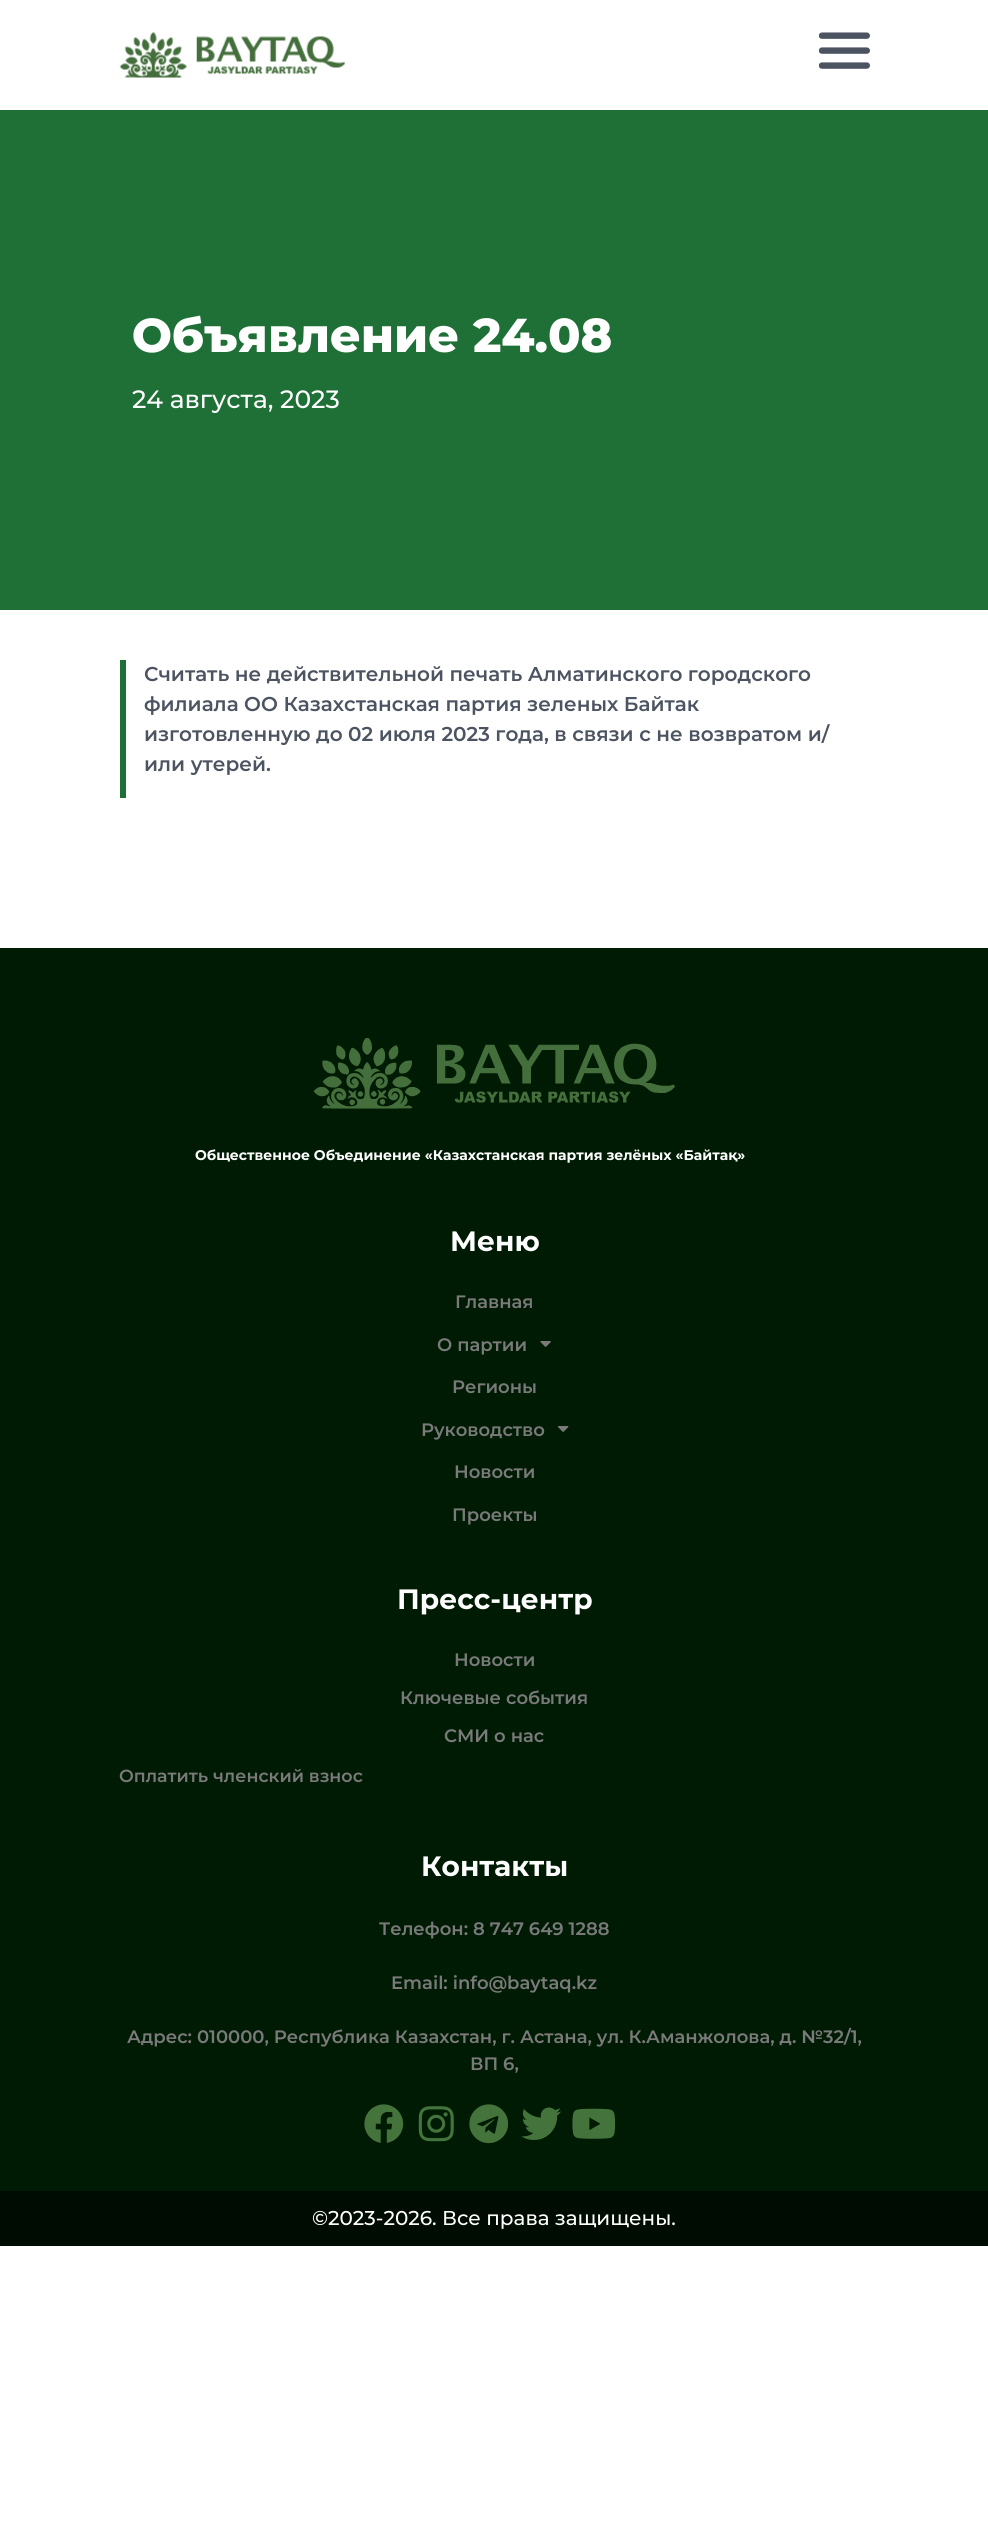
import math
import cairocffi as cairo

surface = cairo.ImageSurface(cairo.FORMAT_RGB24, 988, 2547)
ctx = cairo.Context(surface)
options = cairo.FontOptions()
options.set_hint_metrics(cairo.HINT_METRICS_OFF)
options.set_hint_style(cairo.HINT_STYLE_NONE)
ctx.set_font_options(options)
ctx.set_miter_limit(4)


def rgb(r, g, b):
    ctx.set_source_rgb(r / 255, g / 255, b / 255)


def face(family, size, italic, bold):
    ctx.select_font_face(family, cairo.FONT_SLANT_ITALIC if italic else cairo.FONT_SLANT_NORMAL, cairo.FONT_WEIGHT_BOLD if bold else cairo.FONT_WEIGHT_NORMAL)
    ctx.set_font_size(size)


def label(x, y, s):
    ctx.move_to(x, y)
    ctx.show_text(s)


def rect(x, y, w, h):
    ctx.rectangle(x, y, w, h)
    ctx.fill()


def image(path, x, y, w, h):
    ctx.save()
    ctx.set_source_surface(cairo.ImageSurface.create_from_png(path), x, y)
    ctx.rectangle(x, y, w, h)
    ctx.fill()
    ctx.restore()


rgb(255, 255, 255)
ctx.paint()
image('image0.png', 119, 32, 226, 46)
image('image1.png', 819, 32, 51, 37)
rgb(31, 112, 54)
rect(0, 110, 988, 500)
face('Montserrat ExtraBold', 47.5, 0, 0)
rgb(255, 255, 255)
label(132, 352, 'Объявление 24.08')
face('Montserrat Medium', 25, 0, 0)
label(132, 408, '24 августа, 2023')
rgb(31, 112, 54)
rect(120, 660, 6, 138)
face('Montserrat SemiBold', 20, 0, 0)
rgb(76, 83, 97)
label(144, 681, 'Считать не действительной печать Алматинского городского')
label(144, 711, 'филиала ОО Казахстанская партия зеленых Байтак')
label(144, 741, 'изготовленную до 02 июля 2023 года, в связи с не возвратом и/')
label(144, 771, 'или утерей.')
rgb(0, 27, 3)
rect(0, 948, 988, 1243)
image('image2.png', 314, 1038, 361, 71)
face('Montserrat', 14, 0, 1)
rgb(255, 255, 255)
label(195, 1160, 'Общественное Объединение «Казахстанская партия зелёных «Байтақ»')
face('Montserrat', 28, 0, 1)
label(450, 1251, 'Меню')
face('Montserrat SemiBold', 18, 0, 0)
rgb(122, 122, 122)
label(455, 1308, 'Главная')
label(437, 1351, 'О партии')
image('image3.png', 540, 1341, 11, 6)
label(452, 1393, 'Регионы')
label(421, 1436, 'Руководство')
image('image4.png', 557, 1426, 12, 6)
label(454, 1478, 'Новости')
label(452, 1521, 'Проекты')
face('Montserrat', 28, 0, 1)
rgb(255, 255, 255)
label(397, 1609, 'Пресс-центр')
face('Montserrat SemiBold', 18, 0, 0)
rgb(122, 122, 122)
label(454, 1666, 'Новости')
label(400, 1704, 'Ключевые события')
label(444, 1742, 'СМИ о нас')
face('Montserrat SemiBold', 17.5, 0, 0)
label(119, 1782, 'Оплатить членский взнос')
face('Montserrat', 28, 0, 1)
rgb(255, 255, 255)
label(421, 1876, 'Контакты')
face('Montserrat SemiBold', 18, 0, 0)
rgb(122, 122, 122)
label(379, 1935, 'Телефон: 8 747 649 1288')
label(391, 1989, 'Email: info@baytaq.kz')
label(127, 2043, 'Адрес: 010000, Республика Казахстан, г. Астана, ул. К.Аманжолова, д. №32/1,')
label(470, 2070, 'ВП 6,')
image('image5.png', 364, 2104, 40, 39)
image('image6.png', 418, 2106, 36, 36)
image('image7.png', 469, 2104, 40, 40)
image('image8.png', 521, 2107, 40, 33)
image('image9.png', 572, 2108, 44, 31)
rgb(0, 12, 2)
rect(0, 2191, 988, 55)
face('Montserrat Medium', 20, 0, 0)
rgb(255, 255, 255)
label(312, 2225, '©2023-2026. Все права защищены.')
surface.write_to_png('render.png')
